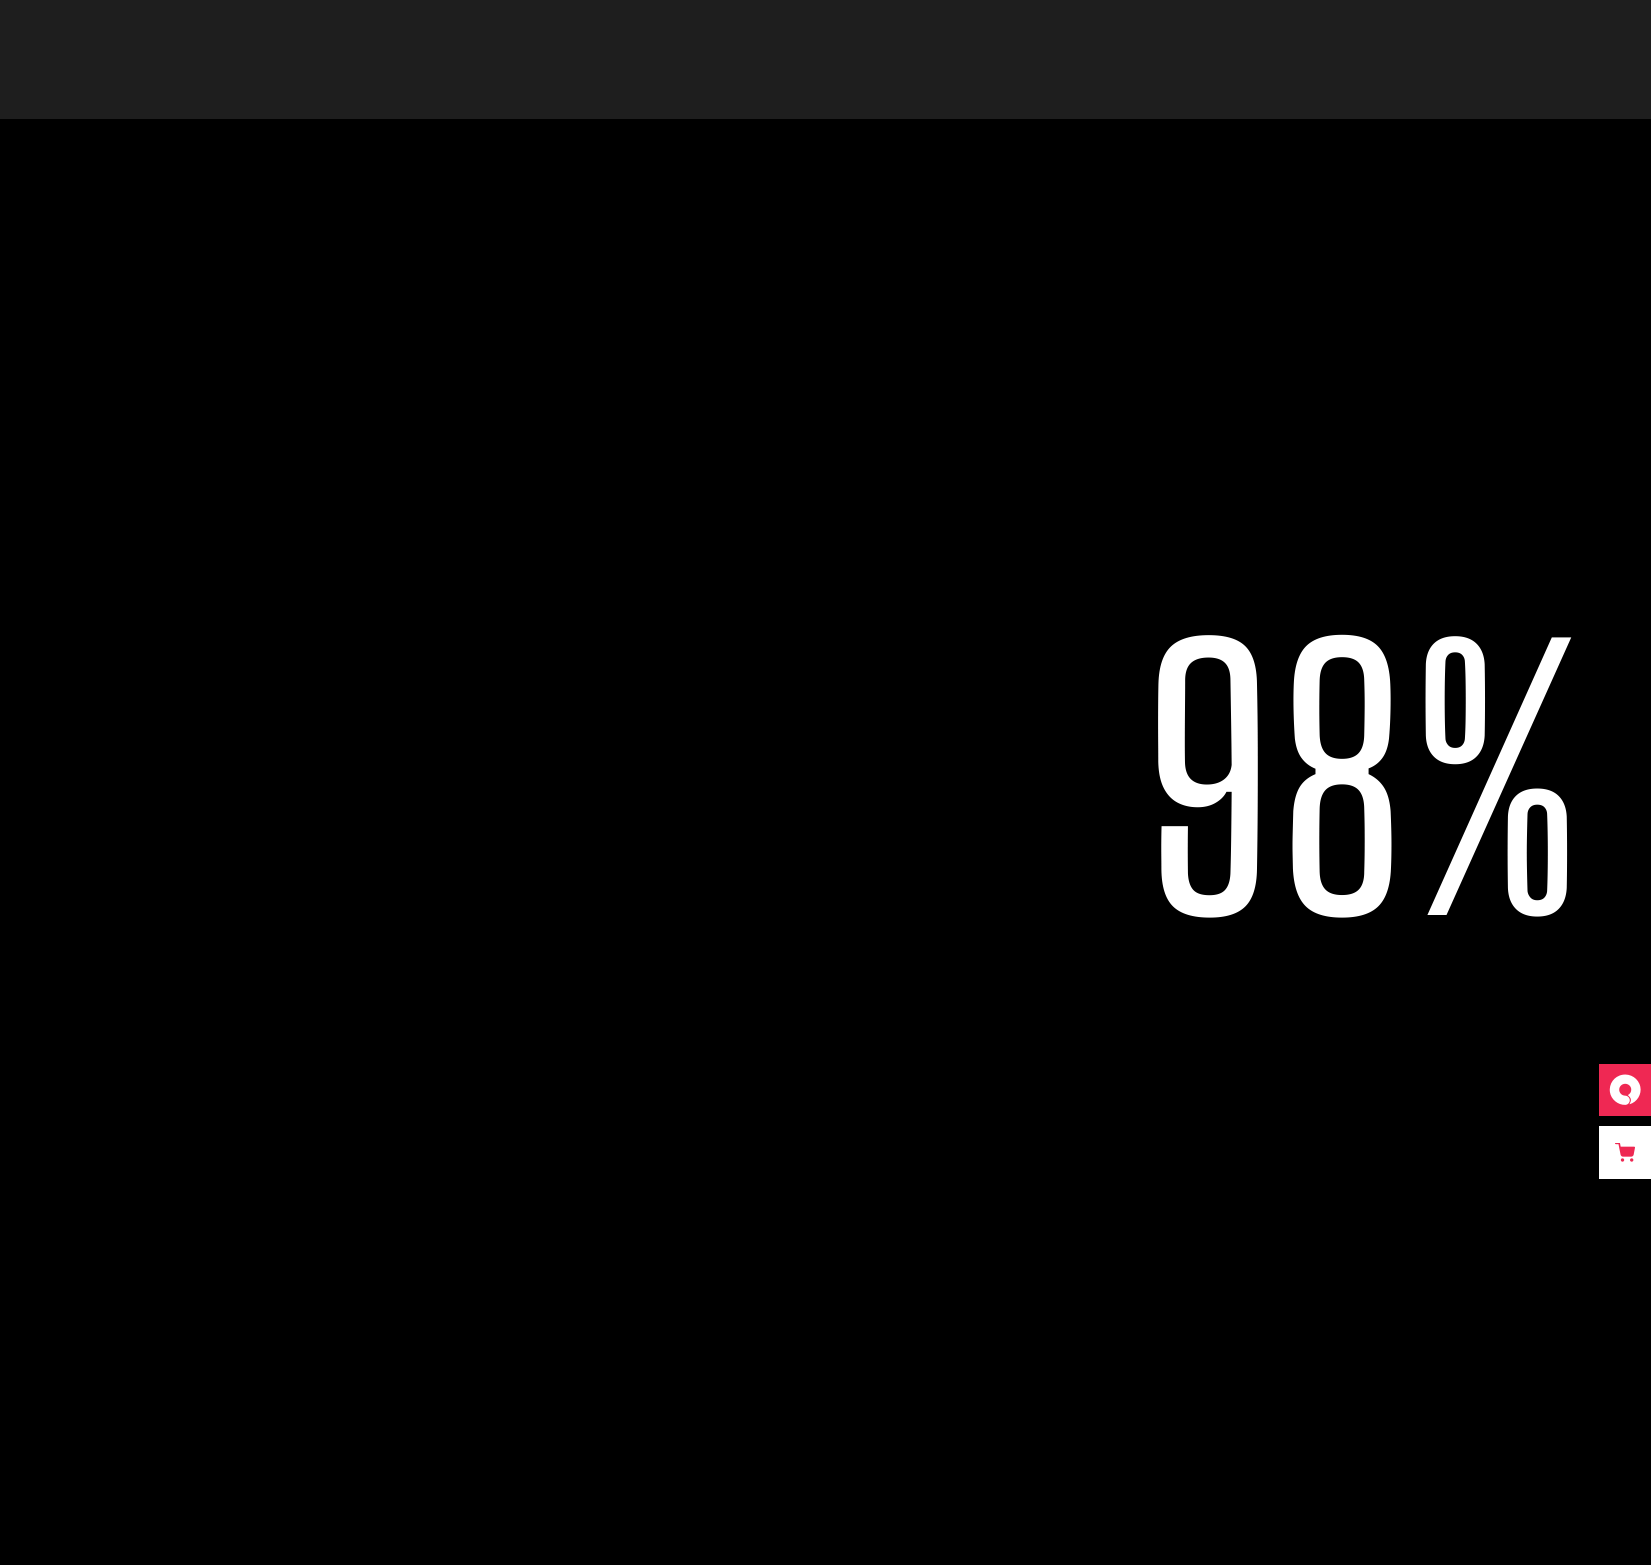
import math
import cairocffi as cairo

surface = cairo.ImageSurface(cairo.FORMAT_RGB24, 1651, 1565)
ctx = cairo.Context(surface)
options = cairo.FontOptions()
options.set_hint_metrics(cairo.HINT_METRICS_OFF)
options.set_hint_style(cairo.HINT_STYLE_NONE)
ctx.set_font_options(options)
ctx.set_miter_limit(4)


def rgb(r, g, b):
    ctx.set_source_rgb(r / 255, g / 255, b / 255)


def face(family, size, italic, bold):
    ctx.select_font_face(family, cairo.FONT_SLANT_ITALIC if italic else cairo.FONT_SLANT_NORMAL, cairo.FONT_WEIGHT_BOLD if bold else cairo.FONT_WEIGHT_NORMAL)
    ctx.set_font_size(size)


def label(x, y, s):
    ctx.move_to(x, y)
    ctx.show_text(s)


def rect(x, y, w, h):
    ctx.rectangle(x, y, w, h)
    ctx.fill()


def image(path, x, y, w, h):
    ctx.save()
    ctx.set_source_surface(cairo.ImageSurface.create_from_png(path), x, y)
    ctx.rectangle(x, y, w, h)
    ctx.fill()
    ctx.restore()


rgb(30, 30, 30)
ctx.paint()
rgb(0, 0, 0)
rect(0, 119, 1651, 1446)
face('Big Shoulders Display Thin', 347, 0, 0)
rgb(255, 255, 255)
label(1143, 915, '98%')
rgb(239, 40, 83)
rect(1599, 1064, 52, 52)
image('image0.png', 1609, 1074, 32, 31)
rgb(255, 255, 255)
rect(1599, 1126, 52, 53)
image('image1.png', 1615, 1143, 20, 19)
surface.write_to_png('render.png')
